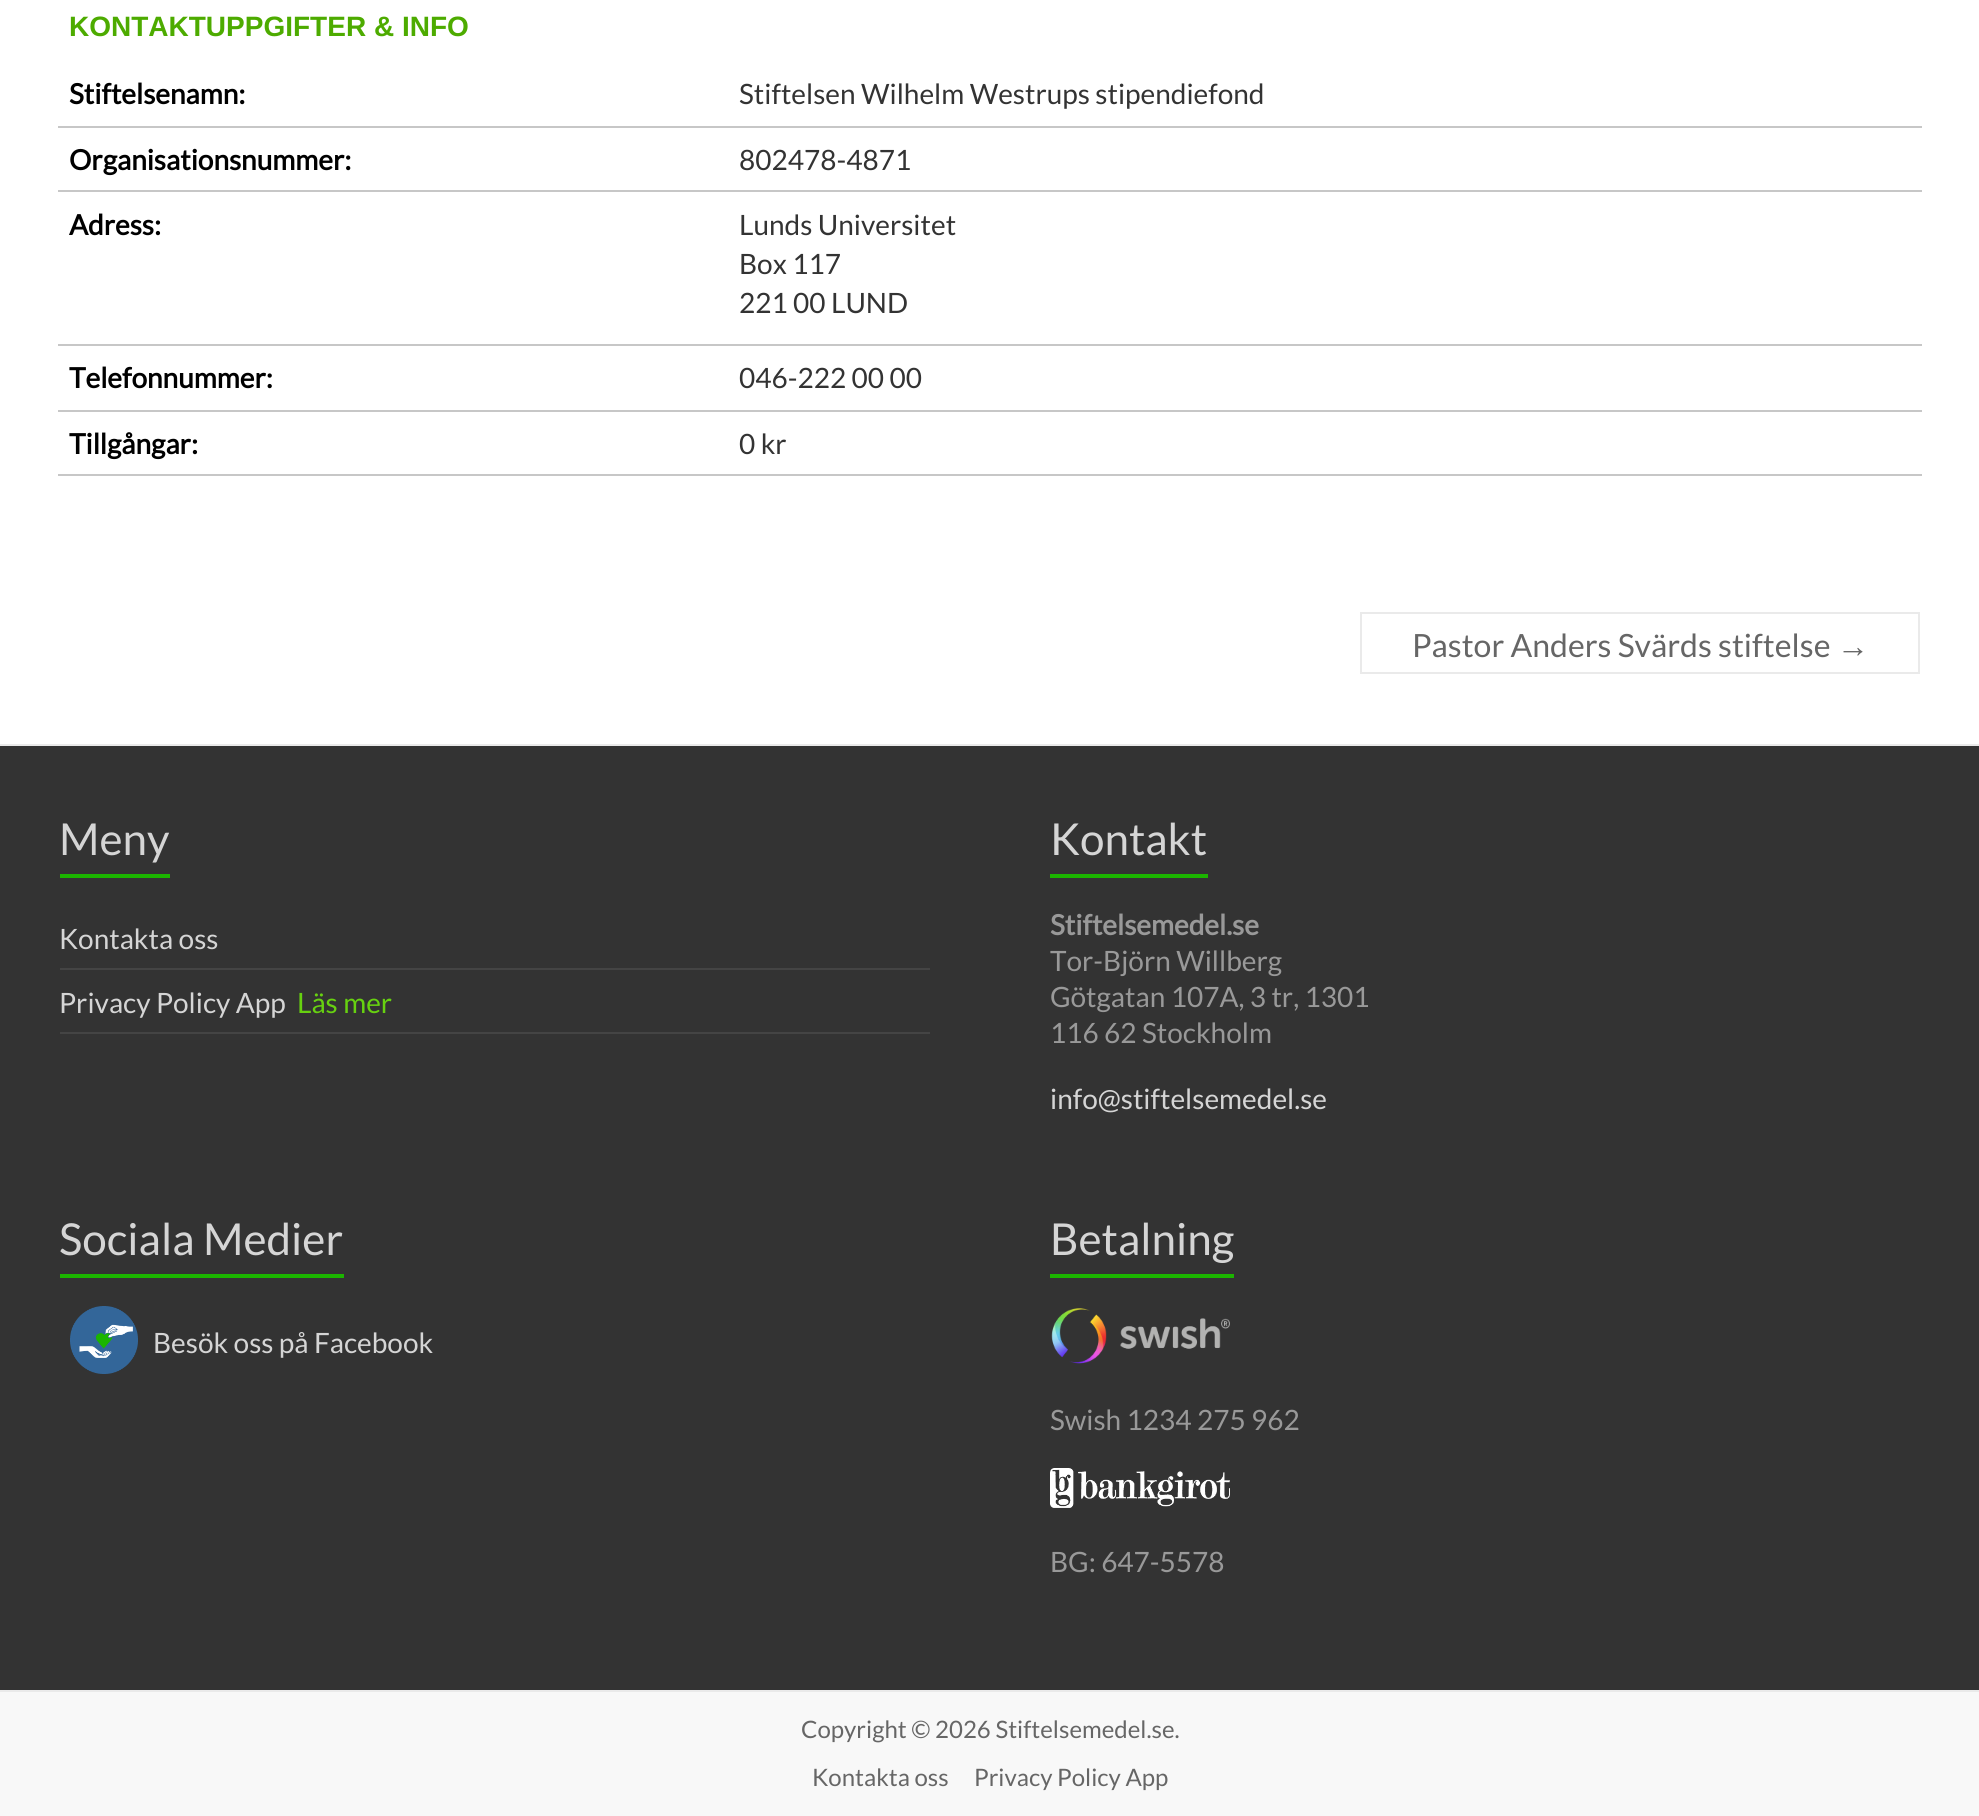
import math
import cairocffi as cairo

surface = cairo.ImageSurface(cairo.FORMAT_RGB24, 1979, 1816)
ctx = cairo.Context(surface)
options = cairo.FontOptions()
options.set_hint_metrics(cairo.HINT_METRICS_OFF)
options.set_hint_style(cairo.HINT_STYLE_NONE)
ctx.set_font_options(options)
ctx.set_miter_limit(4)


def rgb(r, g, b):
    ctx.set_source_rgb(r / 255, g / 255, b / 255)


def face(family, size, italic, bold):
    ctx.select_font_face(family, cairo.FONT_SLANT_ITALIC if italic else cairo.FONT_SLANT_NORMAL, cairo.FONT_WEIGHT_BOLD if bold else cairo.FONT_WEIGHT_NORMAL)
    ctx.set_font_size(size)


def label(x, y, s):
    ctx.move_to(x, y)
    ctx.show_text(s)


def rect(x, y, w, h):
    ctx.rectangle(x, y, w, h)
    ctx.fill()


def image(path, x, y, w, h):
    ctx.save()
    ctx.set_source_surface(cairo.ImageSurface.create_from_png(path), x, y)
    ctx.rectangle(x, y, w, h)
    ctx.fill()
    ctx.restore()


rgb(255, 255, 255)
ctx.paint()
face('Liberation Sans', 28, 0, 1)
rgb(77, 171, 0)
label(69, 36, 'KONTAKTUPPGIFTER & INFO')
rgb(199, 199, 199)
rect(58, 126, 1864, 2)
face('Lato', 28, 0, 1)
rgb(0, 0, 0)
label(69, 104, 'Stiftelsenamn:')
face('Lato', 28, 0, 0)
rgb(51, 51, 51)
label(739, 104, 'Stiftelsen Wilhelm Westrups stipendiefond')
rgb(199, 199, 199)
rect(58, 190, 1864, 2)
face('Lato', 28, 0, 1)
rgb(0, 0, 0)
label(69, 170, 'Organisationsnummer:')
face('Lato', 28, 0, 0)
rgb(51, 51, 51)
label(739, 170, '802478-4871')
rgb(199, 199, 199)
rect(58, 344, 1864, 2)
face('Lato', 28, 0, 1)
rgb(0, 0, 0)
label(69, 235, 'Adress:')
face('Lato', 28, 0, 0)
rgb(51, 51, 51)
label(739, 235, 'Lunds Universitet')
label(739, 274, 'Box 117')
label(739, 313, '221 00 LUND')
rgb(199, 199, 199)
rect(58, 410, 1864, 2)
face('Lato', 28, 0, 1)
rgb(0, 0, 0)
label(69, 388, 'Telefonnummer:')
face('Lato', 28, 0, 0)
rgb(51, 51, 51)
label(739, 388, '046-222 00 00')
rgb(199, 199, 199)
rect(58, 474, 1864, 2)
face('Lato', 28, 0, 1)
rgb(0, 0, 0)
label(69, 454, 'Tillgångar:')
face('Lato', 28, 0, 0)
rgb(51, 51, 51)
label(739, 454, '0 kr')
face('Lato', 32, 0, 0)
rgb(102, 102, 102)
label(1412, 657, 'Pastor Anders Svärds stiftelse')
rgb(234, 234, 234)
rect(1360, 612, 560, 2)
rect(1360, 672, 476, 2)
rect(1360, 612, 2, 62)
face('Liberation Sans', 32, 0, 0)
rgb(102, 102, 102)
label(1837, 657, '→')
rgb(234, 234, 234)
rect(1918, 612, 2, 62)
rect(1836, 672, 84, 2)
rgb(51, 51, 51)
rect(0, 746, 1979, 944)
rgb(234, 234, 234)
rect(0, 744, 1979, 2)
face('Lato', 44, 0, 0)
rgb(213, 213, 213)
label(59, 855, 'Meny')
rgb(27, 181, 0)
rect(60, 874, 110, 4)
rgb(68, 68, 68)
rect(60, 968, 870, 2)
face('Lato', 28, 0, 0)
rgb(213, 213, 213)
label(59, 949, 'Kontakta oss')
rgb(68, 68, 68)
rect(60, 1032, 870, 2)
rgb(213, 213, 213)
label(59, 1013, 'Privacy Policy App')
rgb(103, 209, 16)
label(297, 1013, 'Läs mer')
face('Lato', 44, 0, 0)
rgb(213, 213, 213)
label(1050, 855, 'Kontakt')
rgb(27, 181, 0)
rect(1050, 874, 158, 4)
face('Lato', 28, 0, 1)
rgb(153, 153, 153)
label(1050, 935, 'Stiftelsemedel.se')
face('Lato', 28, 0, 0)
label(1050, 971, 'Tor-Björn Willberg')
label(1050, 1007, 'Götgatan 107A, 3 tr, 1301')
label(1050, 1043, '116 62 Stockholm')
rgb(213, 213, 213)
label(1050, 1109, 'info@stiftelsemedel.se')
face('Lato', 44, 0, 0)
label(59, 1255, 'Sociala Medier')
rgb(27, 181, 0)
rect(60, 1274, 284, 4)
image('image0.png', 70, 1306, 68, 68)
face('Lato', 28, 0, 0)
rgb(213, 213, 213)
label(153, 1353, 'Besök oss på Facebook')
face('Lato', 44, 0, 0)
label(1050, 1255, 'Betalning')
rgb(27, 181, 0)
rect(1050, 1274, 184, 4)
image('image1.png', 1051, 1308, 179, 56)
face('Lato', 28, 0, 0)
rgb(153, 153, 153)
label(1050, 1430, 'Swish 1234 275 962')
image('image2.png', 1050, 1468, 180, 40)
label(1050, 1572, 'BG: 647-5578')
rgb(248, 248, 248)
rect(0, 1692, 1979, 124)
rgb(234, 234, 234)
rect(0, 1690, 1979, 2)
face('Lato', 24, 0, 0)
rgb(102, 102, 102)
label(801, 1738, 'Copyright © 2026 Stiftelsemedel.se.')
label(812, 1786, 'Kontakta oss')
label(974, 1786, 'Privacy Policy App')
surface.write_to_png('render.png')
